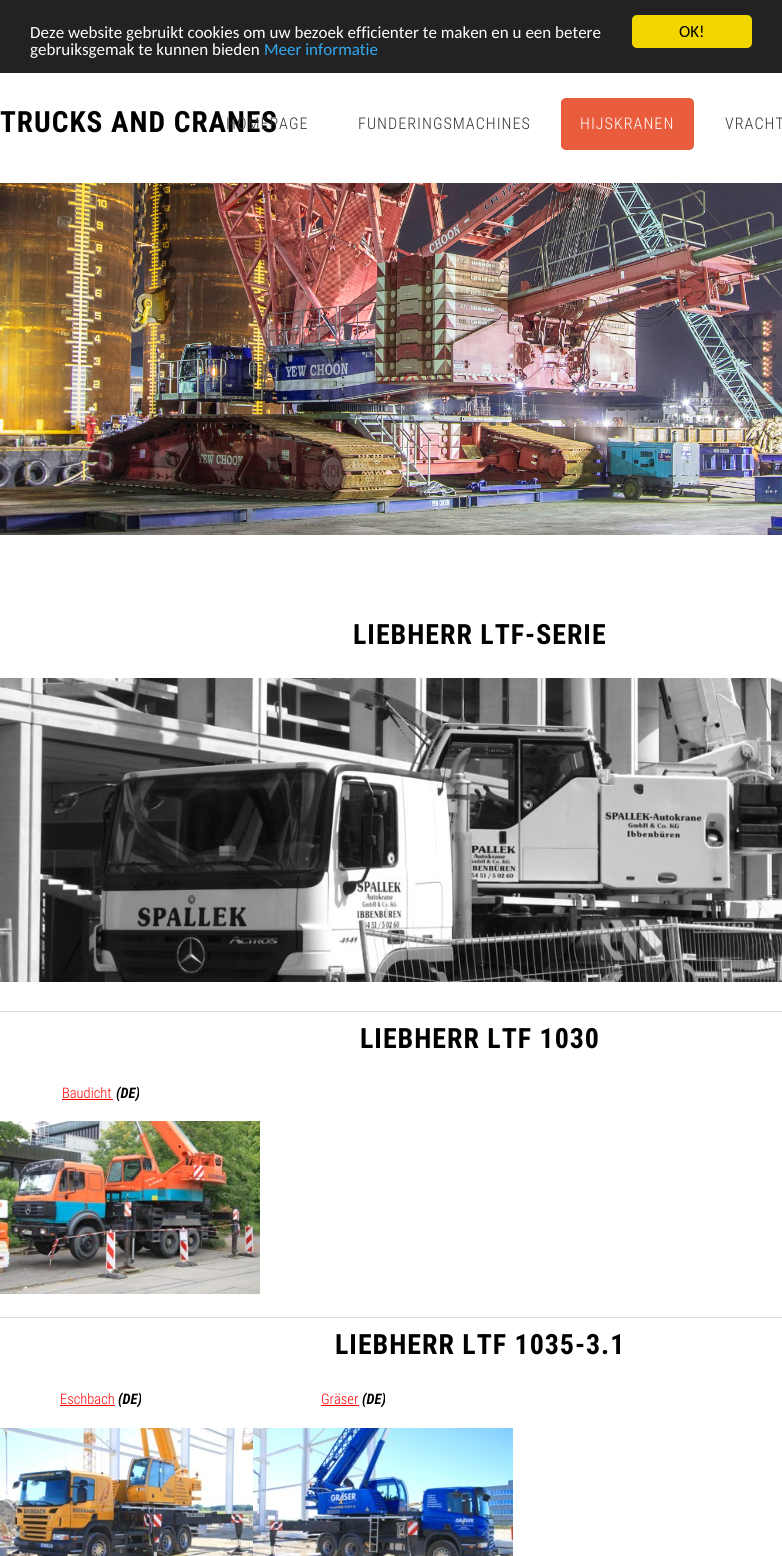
import math
import cairocffi as cairo

surface = cairo.ImageSurface(cairo.FORMAT_RGB24, 782, 1556)
ctx = cairo.Context(surface)
options = cairo.FontOptions()
options.set_hint_metrics(cairo.HINT_METRICS_OFF)
options.set_hint_style(cairo.HINT_STYLE_NONE)
ctx.set_font_options(options)
ctx.set_miter_limit(4)


def rgb(r, g, b):
    ctx.set_source_rgb(r / 255, g / 255, b / 255)


def face(family, size, italic, bold):
    ctx.select_font_face(family, cairo.FONT_SLANT_ITALIC if italic else cairo.FONT_SLANT_NORMAL, cairo.FONT_WEIGHT_BOLD if bold else cairo.FONT_WEIGHT_NORMAL)
    ctx.set_font_size(size)


def label(x, y, s):
    ctx.move_to(x, y)
    ctx.show_text(s)


def tracked(x, y, s, letter, word):
    ctx.move_to(x, y)
    for ch in s:
        ctx.show_text(ch)
        ctx.rel_move_to(letter + word * (ch == ' '), 0)


def rect(x, y, w, h):
    ctx.rectangle(x, y, w, h)
    ctx.fill()


def rrect(x, y, w, h, r):
    ctx.new_sub_path()
    for i, (u, v) in enumerate([(x + w - r, y + h - r), (x + r, y + h - r), (x + r, y + r), (x + w - r, y + r)]):
        ctx.arc(u, v, r, i * math.pi / 2, (i + 1) * math.pi / 2)
    ctx.close_path()


def image(path, x, y, w, h):
    ctx.save()
    ctx.set_source_surface(cairo.ImageSurface.create_from_png(path), x, y)
    ctx.rectangle(x, y, w, h)
    ctx.fill()
    ctx.restore()


rgb(255, 255, 255)
ctx.paint()
rgb(34, 34, 34)
rect(0, 0, 782, 73)
face('Carlito', 17, 0, 0)
rgb(255, 255, 255)
label(30, 38, 'Deze website gebruikt cookies om uw bezoek efficienter te maken en u een betere')
label(30, 55, 'gebruiksgemak te kunnen bieden')
rgb(49, 168, 240)
label(264, 55, 'Meer informatie')
rgb(241, 214, 0)
rrect(632, 15, 120, 33, 5)
ctx.fill()
rgb(0, 0, 0)
label(679, 37, 'OK!')
face('Roboto Condensed', 29.25, 0, 1)
tracked(0, 132, 'TRUCKS AND CRANES', 1, 0)
face('Roboto Condensed Light', 16.1, 0, 0)
rgb(51, 51, 51)
tracked(226, 129, 'HOMEPAGE', 1, 0)
tracked(358, 129, 'FUNDERINGSMACHINES', 1, 0)
rgb(233, 93, 60)
rrect(561, 98, 133, 52, 5)
ctx.fill()
rgb(255, 255, 255)
tracked(580, 129, 'HIJSKRANEN', 1, 0)
rgb(51, 51, 51)
tracked(725, 129, 'VRACHT', 1, 0)
image('image0.png', 0, 183, 782, 352)
face('Roboto Condensed', 27.9, 0, 1)
rgb(0, 0, 0)
tracked(353, 644, 'LIEBHERR LTF-SERIE', 1, 0)
image('image1.png', 0, 678, 782, 304)
rgb(221, 221, 221)
rect(0, 1011, 782, 1)
rgb(0, 0, 0)
tracked(360, 1048, 'LIEBHERR LTF 1030', 1, 0)
face('Roboto Condensed Light', 14.5, 0, 0)
rgb(255, 0, 0)
label(62, 1098, 'Baudicht')
rect(62, 1099, 51, 1)
face('Roboto Condensed', 14.5, 1, 1)
rgb(0, 0, 0)
label(116, 1098, '(DE)')
image('image2.png', 0, 1121, 260, 173)
rgb(221, 221, 221)
rect(0, 1317, 782, 1)
face('Roboto Condensed', 27.9, 0, 1)
rgb(0, 0, 0)
tracked(335, 1354, 'LIEBHERR LTF 1035-3.1', 1, 0)
face('Roboto Condensed Light', 14.5, 0, 0)
rgb(255, 0, 0)
label(60, 1404, 'Eschbach')
rect(60, 1405, 55, 1)
face('Roboto Condensed', 14.5, 1, 1)
rgb(0, 0, 0)
label(118, 1404, '(DE)')
image('image3.png', 0, 1428, 253, 128)
face('Roboto Condensed Light', 14.5, 0, 0)
rgb(255, 0, 0)
label(321, 1404, 'Gräser')
rect(321, 1405, 38, 1)
face('Roboto Condensed', 14.5, 1, 1)
rgb(0, 0, 0)
label(362, 1404, '(DE)')
image('image4.png', 253, 1428, 260, 128)
surface.write_to_png('render.png')
